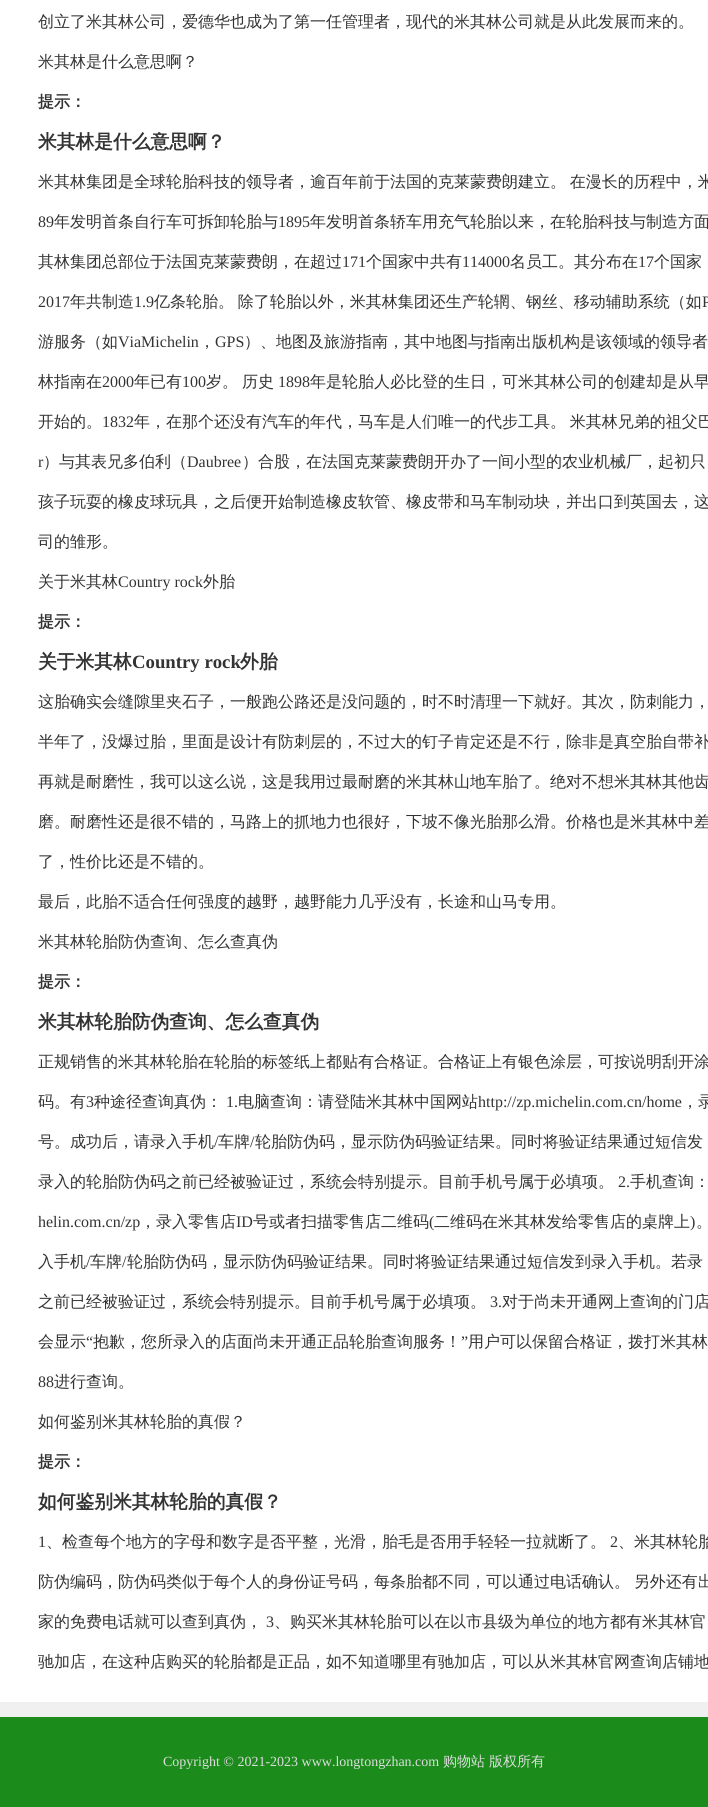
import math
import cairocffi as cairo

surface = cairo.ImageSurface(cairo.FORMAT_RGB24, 708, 1807)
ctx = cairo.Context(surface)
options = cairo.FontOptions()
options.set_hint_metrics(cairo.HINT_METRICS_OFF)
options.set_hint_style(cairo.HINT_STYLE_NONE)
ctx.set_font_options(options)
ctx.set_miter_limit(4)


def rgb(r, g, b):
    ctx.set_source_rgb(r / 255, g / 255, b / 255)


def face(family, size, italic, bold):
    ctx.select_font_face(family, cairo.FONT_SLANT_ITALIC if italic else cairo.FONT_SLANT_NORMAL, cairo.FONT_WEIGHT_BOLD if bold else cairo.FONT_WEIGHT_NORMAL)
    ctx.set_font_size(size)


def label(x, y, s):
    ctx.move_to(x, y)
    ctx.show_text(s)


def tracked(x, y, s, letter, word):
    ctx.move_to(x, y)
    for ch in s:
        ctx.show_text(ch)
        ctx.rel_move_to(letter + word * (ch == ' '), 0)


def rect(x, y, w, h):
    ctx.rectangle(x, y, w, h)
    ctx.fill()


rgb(240, 240, 240)
ctx.paint()
rgb(255, 255, 255)
rect(0, 0, 708, 1702)
face('WenQuanYi Zen Hei Medium', 16, 0, 0)
rgb(51, 51, 51)
label(38, 27, '创立了米其林公司，爱德华也成为了第一任管理者，现代的米其林公司就是从此发展而来的。')
label(38, 67, '米其林是什么意思啊？')
face('WenQuanYi Zen Hei', 16, 0, 1)
label(38, 107, '提示：')
face('WenQuanYi Zen Hei', 18.75, 0, 1)
label(38, 148, '米其林是什么意思啊？')
face('WenQuanYi Zen Hei Medium', 16, 0, 0)
tracked(38, 187, '米其林集团是全球轮胎科技的领导者，逾百年前于法国的克莱蒙费朗建立。 在漫长的历程中，米', 0, -1)
face('Liberation Serif', 16, 0, 0)
label(38, 227, '89')
face('WenQuanYi Zen Hei Medium', 16, 0, 0)
label(54, 227, '年发明首条自行车可拆卸轮胎与')
face('Liberation Serif', 16, 0, 0)
label(278, 227, '1895')
face('WenQuanYi Zen Hei Medium', 16, 0, 0)
label(310, 227, '年发明首条轿车用充气轮胎以来，在轮胎科技与制造方面')
label(38, 267, '其林集团总部位于法国克莱蒙费朗，在超过')
face('Liberation Serif', 16, 0, 0)
label(342, 267, '171')
face('WenQuanYi Zen Hei Medium', 16, 0, 0)
label(366, 267, '个国家中共有')
face('Liberation Serif', 16, 0, 0)
label(462, 267, '114000')
face('WenQuanYi Zen Hei Medium', 16, 0, 0)
label(510, 267, '名员工。其分布在')
face('Liberation Serif', 16, 0, 0)
label(638, 267, '17')
face('WenQuanYi Zen Hei Medium', 16, 0, 0)
label(654, 267, '个国家')
face('Liberation Serif', 16, 0, 0)
label(38, 307, '2017')
face('WenQuanYi Zen Hei Medium', 16, 0, 0)
label(70, 307, '年共制造')
face('Liberation Serif', 16, 0, 0)
label(134, 307, '1.9')
face('WenQuanYi Zen Hei Medium', 16, 0, 0)
tracked(154, 307, '亿条轮胎。 除了轮胎以外，米其林集团还生产轮辋、钢丝、移动辅助系统（如', 0, -1)
face('Liberation Serif', 16, 0, 0)
label(702, 307, 'P')
face('WenQuanYi Zen Hei Medium', 16, 0, 0)
label(38, 347, '游服务（如')
face('Liberation Serif', 16, 0, 0)
label(118, 347, 'ViaMichelin')
face('WenQuanYi Zen Hei Medium', 16, 0, 0)
label(199, 347, '，')
face('Liberation Serif', 16, 0, 0)
label(215, 347, 'GPS')
face('WenQuanYi Zen Hei Medium', 16, 0, 0)
label(244, 347, '）、地图及旅游指南，其中地图与指南出版机构是该领域的领导者')
label(38, 387, '林指南在')
face('Liberation Serif', 16, 0, 0)
label(102, 387, '2000')
face('WenQuanYi Zen Hei Medium', 16, 0, 0)
label(134, 387, '年已有')
face('Liberation Serif', 16, 0, 0)
label(182, 387, '100')
face('WenQuanYi Zen Hei Medium', 16, 0, 0)
label(206, 387, '岁。')
label(242, 387, '历史')
face('Liberation Serif', 16, 0, 0)
label(278, 387, '1898')
face('WenQuanYi Zen Hei Medium', 16, 0, 0)
label(310, 387, '年是轮胎人必比登的生日，可米其林公司的创建却是从早')
label(38, 427, '开始的。')
face('Liberation Serif', 16, 0, 0)
label(102, 427, '1832')
face('WenQuanYi Zen Hei Medium', 16, 0, 0)
tracked(134, 427, '年，在那个还没有汽车的年代，马车是人们唯一的代步工具。 米其林兄弟的祖父巴', 0, -1)
face('Liberation Serif', 16, 0, 0)
label(38, 467, 'r')
face('WenQuanYi Zen Hei Medium', 16, 0, 0)
label(43, 467, '）与其表兄多伯利（')
face('Liberation Serif', 16, 0, 0)
label(187, 467, 'Daubree')
face('WenQuanYi Zen Hei Medium', 16, 0, 0)
label(242, 467, '）合股，在法国克莱蒙费朗开办了一间小型的农业机械厂，起初只')
label(38, 507, '孩子玩耍的橡皮球玩具，之后便开始制造橡皮软管、橡皮带和马车制动块，并出口到英国去，这')
label(38, 547, '司的雏形。')
label(38, 587, '关于米其林')
face('Liberation Serif', 16, 0, 0)
label(118, 587, 'Country rock')
face('WenQuanYi Zen Hei Medium', 16, 0, 0)
label(203, 587, '外胎')
face('WenQuanYi Zen Hei', 16, 0, 1)
label(38, 627, '提示：')
face('WenQuanYi Zen Hei', 18.75, 0, 1)
label(38, 668, '关于米其林')
face('Liberation Serif', 18.75, 0, 1)
label(132, 668, 'Country rock')
face('WenQuanYi Zen Hei', 18.75, 0, 1)
label(240, 668, '外胎')
face('WenQuanYi Zen Hei Medium', 16, 0, 0)
label(38, 707, '这胎确实会缝隙里夹石子，一般跑公路还是没问题的，时不时清理一下就好。其次，防刺能力，')
label(38, 747, '半年了，没爆过胎，里面是设计有防刺层的，不过大的钉子肯定还是不行，除非是真空胎自带补')
label(38, 787, '再就是耐磨性，我可以这么说，这是我用过最耐磨的米其林山地车胎了。绝对不想米其林其他齿')
label(38, 827, '磨。耐磨性还是很不错的，马路上的抓地力也很好，下坡不像光胎那么滑。价格也是米其林中差')
label(38, 867, '了，性价比还是不错的。')
label(38, 907, '最后，此胎不适合任何强度的越野，越野能力几乎没有，长途和山马专用。')
label(38, 947, '米其林轮胎防伪查询、怎么查真伪')
face('WenQuanYi Zen Hei', 16, 0, 1)
label(38, 987, '提示：')
face('WenQuanYi Zen Hei', 18.75, 0, 1)
label(38, 1028, '米其林轮胎防伪查询、怎么查真伪')
face('WenQuanYi Zen Hei Medium', 16, 0, 0)
label(38, 1067, '正规销售的米其林轮胎在轮胎的标签纸上都贴有合格证。合格证上有银色涂层，可按说明刮开涂')
label(38, 1107, '码。有')
face('Liberation Serif', 16, 0, 0)
label(86, 1107, '3')
face('WenQuanYi Zen Hei Medium', 16, 0, 0)
label(94, 1107, '种途径查询真伪：')
face('Liberation Serif', 16, 0, 0)
label(226, 1107, '1.')
face('WenQuanYi Zen Hei Medium', 16, 0, 0)
label(238, 1107, '电脑查询：请登陆米其林中国网站')
face('Liberation Serif', 16, 0, 0)
label(478, 1107, 'http://zp.michelin.com.cn/home')
face('WenQuanYi Zen Hei Medium', 16, 0, 0)
label(682, 1107, '，录')
label(38, 1147, '号。成功后，请录入手机')
face('Liberation Serif', 16, 0, 0)
label(214, 1147, '/')
face('WenQuanYi Zen Hei Medium', 16, 0, 0)
label(218, 1147, '车牌')
face('Liberation Serif', 16, 0, 0)
label(250, 1147, '/')
face('WenQuanYi Zen Hei Medium', 16, 0, 0)
label(255, 1147, '轮胎防伪码，显示防伪码验证结果。同时将验证结果通过短信发')
label(38, 1187, '录入的轮胎防伪码之前已经被验证过，系统会特别提示。目前手机号属于必填项。')
face('Liberation Serif', 16, 0, 0)
label(618, 1187, '2.')
face('WenQuanYi Zen Hei Medium', 16, 0, 0)
label(630, 1187, '手机查询：')
face('Liberation Serif', 16, 0, 0)
label(38, 1227, 'helin.com.cn/zp')
face('WenQuanYi Zen Hei Medium', 16, 0, 0)
label(140, 1227, '，录入零售店')
face('Liberation Serif', 16, 0, 0)
label(236, 1227, 'ID')
face('WenQuanYi Zen Hei Medium', 16, 0, 0)
label(253, 1227, '号或者扫描零售店二维码')
face('Liberation Serif', 16, 0, 0)
label(429, 1227, '(')
face('WenQuanYi Zen Hei Medium', 16, 0, 0)
label(434, 1227, '二维码在米其林发给零售店的桌牌上')
face('Liberation Serif', 16, 0, 0)
label(690, 1227, ')')
face('WenQuanYi Zen Hei Medium', 16, 0, 0)
label(696, 1227, '。')
label(38, 1267, '入手机')
face('Liberation Serif', 16, 0, 0)
label(86, 1267, '/')
face('WenQuanYi Zen Hei Medium', 16, 0, 0)
label(90, 1267, '车牌')
face('Liberation Serif', 16, 0, 0)
label(122, 1267, '/')
face('WenQuanYi Zen Hei Medium', 16, 0, 0)
label(127, 1267, '轮胎防伪码，显示防伪码验证结果。同时将验证结果通过短信发到录入手机。若录')
label(38, 1307, '之前已经被验证过，系统会特别提示。目前手机号属于必填项。')
face('Liberation Serif', 16, 0, 0)
label(490, 1307, '3.')
face('WenQuanYi Zen Hei Medium', 16, 0, 0)
label(502, 1307, '对于尚未开通网上查询的门店')
label(38, 1347, '会显示')
face('Liberation Serif', 16, 0, 0)
label(86, 1347, '“')
face('WenQuanYi Zen Hei Medium', 16, 0, 0)
label(93, 1347, '抱歉，您所录入的店面尚未开通正品轮胎查询服务！')
face('Liberation Serif', 16, 0, 0)
label(461, 1347, '”')
face('WenQuanYi Zen Hei Medium', 16, 0, 0)
label(468, 1347, '用户可以保留合格证，拨打米其林')
face('Liberation Serif', 16, 0, 0)
label(38, 1387, '88')
face('WenQuanYi Zen Hei Medium', 16, 0, 0)
label(54, 1387, '进行查询。')
label(38, 1427, '如何鉴别米其林轮胎的真假？')
face('WenQuanYi Zen Hei', 16, 0, 1)
label(38, 1467, '提示：')
face('WenQuanYi Zen Hei', 18.75, 0, 1)
label(38, 1508, '如何鉴别米其林轮胎的真假？')
face('Liberation Serif', 16, 0, 0)
label(38, 1547, '1')
face('WenQuanYi Zen Hei Medium', 16, 0, 0)
label(46, 1547, '、检查每个地方的字母和数字是否平整，光滑，胎毛是否用手轻轻一拉就断了。')
face('Liberation Serif', 16, 0, 0)
label(610, 1547, '2')
face('WenQuanYi Zen Hei Medium', 16, 0, 0)
label(618, 1547, '、米其林轮胎')
tracked(38, 1587, '防伪编码，防伪码类似于每个人的身份证号码，每条胎都不同，可以通过电话确认。 另外还有出', 0, -1)
label(38, 1627, '家的免费电话就可以查到真伪，')
face('Liberation Serif', 16, 0, 0)
label(266, 1627, '3')
face('WenQuanYi Zen Hei Medium', 16, 0, 0)
label(274, 1627, '、购买米其林轮胎可以在以市县级为单位的地方都有米其林官')
label(38, 1667, '驰加店，在这种店购买的轮胎都是正品，如不知道哪里有驰加店，可以从米其林官网查询店铺地')
rgb(27, 139, 27)
rect(0, 1717, 708, 90)
face('Liberation Serif', 14, 0, 0)
rgb(221, 221, 221)
label(163, 1766, 'Copyright © 2021-2023 www.longtongzhan.com')
face('WenQuanYi Zen Hei Medium', 14, 0, 0)
label(443, 1766, '购物站')
label(489, 1766, '版权所有')
surface.write_to_png('render.png')
